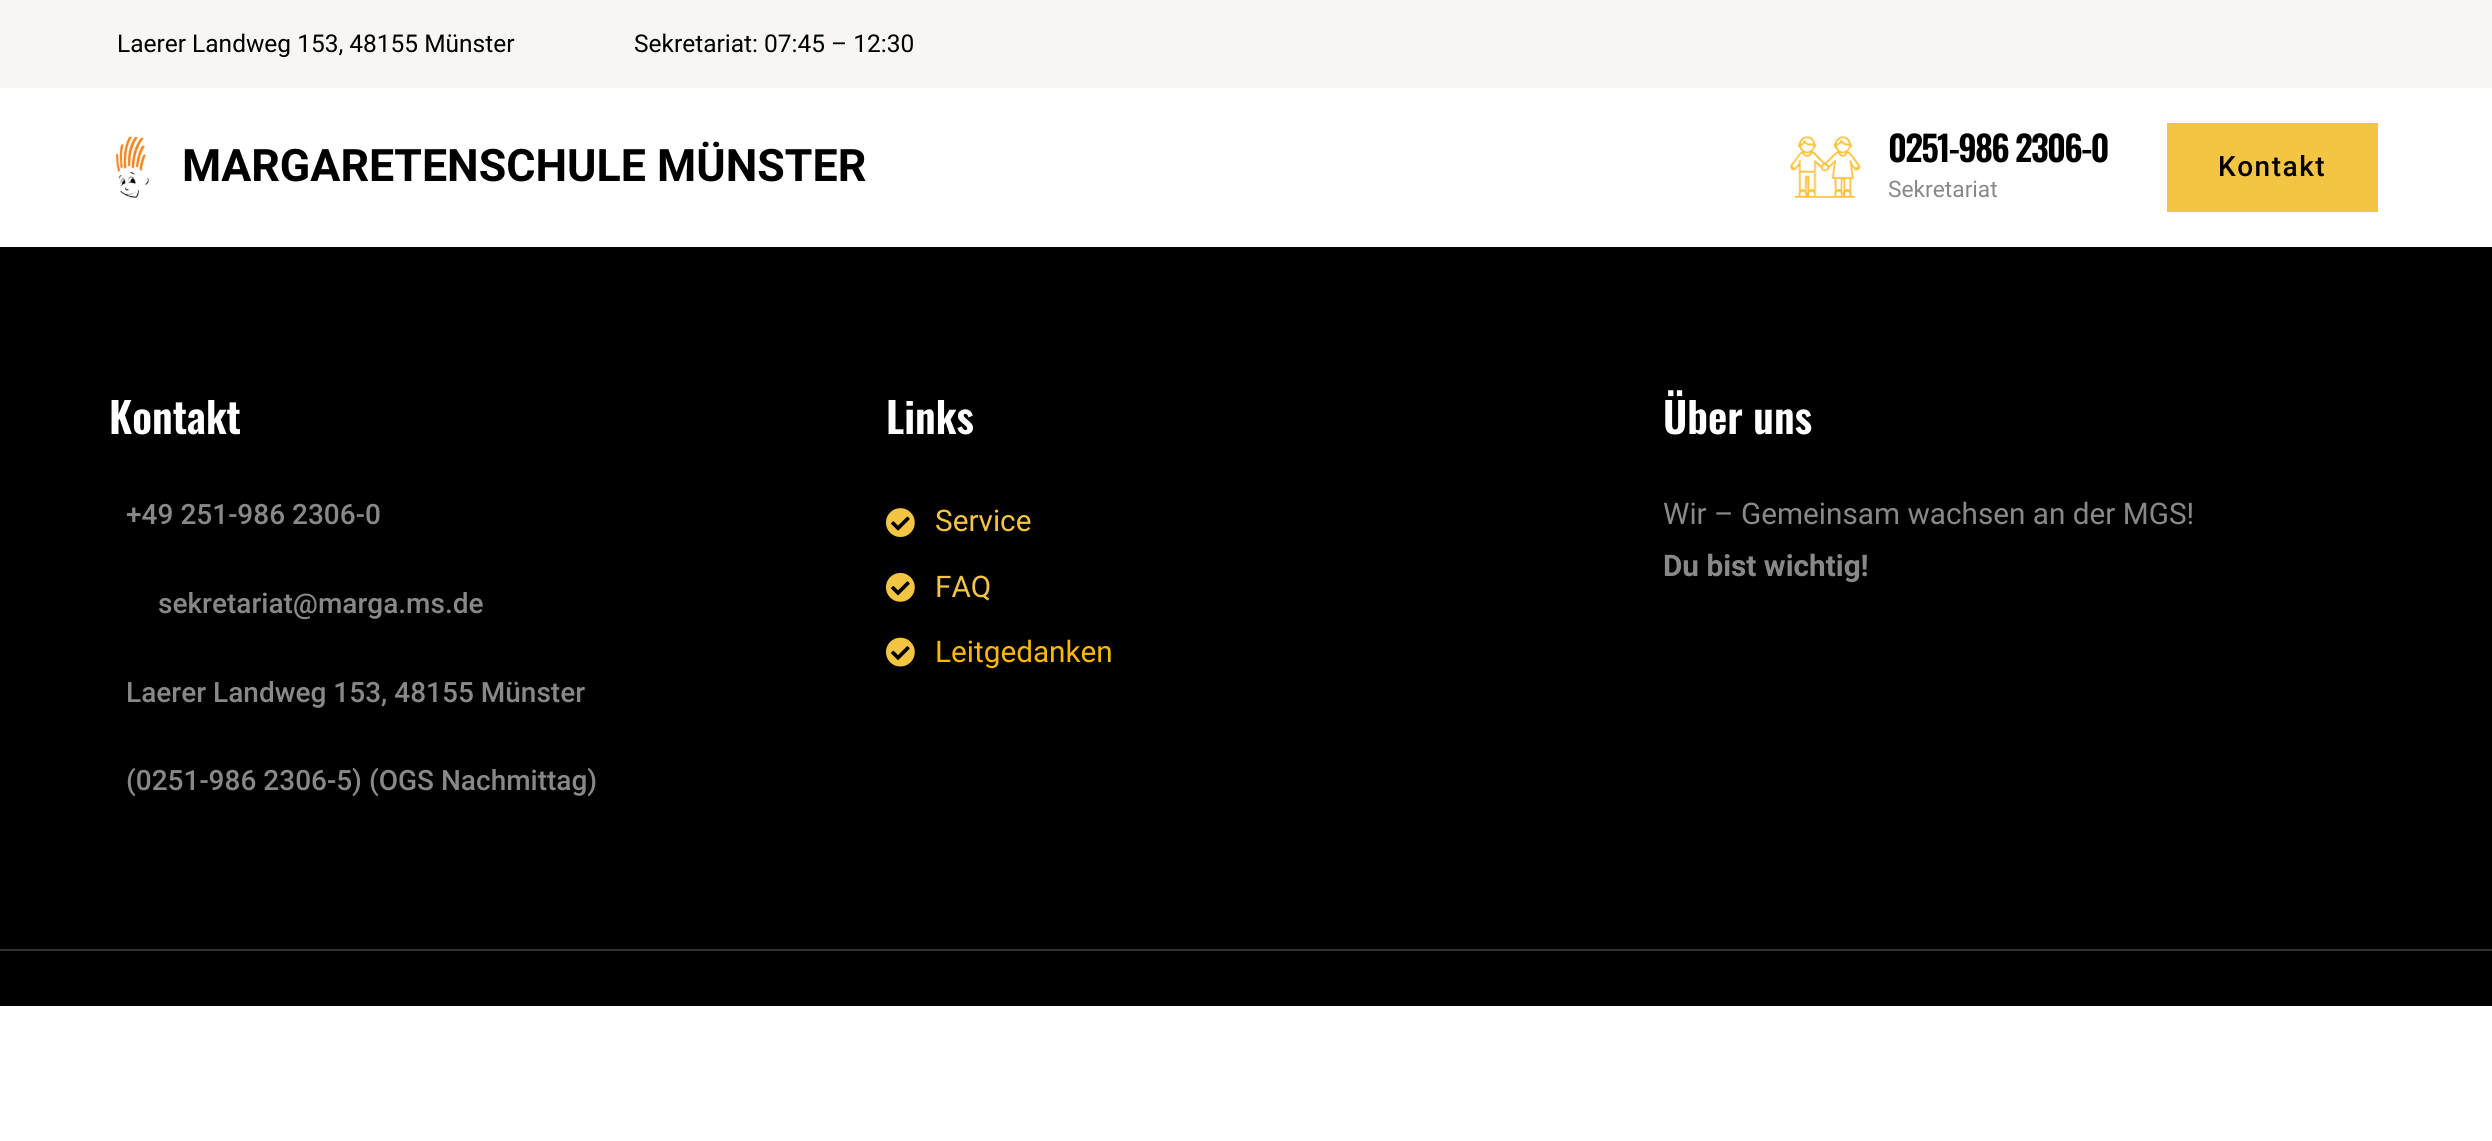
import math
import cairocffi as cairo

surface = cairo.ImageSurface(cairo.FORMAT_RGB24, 2492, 1141)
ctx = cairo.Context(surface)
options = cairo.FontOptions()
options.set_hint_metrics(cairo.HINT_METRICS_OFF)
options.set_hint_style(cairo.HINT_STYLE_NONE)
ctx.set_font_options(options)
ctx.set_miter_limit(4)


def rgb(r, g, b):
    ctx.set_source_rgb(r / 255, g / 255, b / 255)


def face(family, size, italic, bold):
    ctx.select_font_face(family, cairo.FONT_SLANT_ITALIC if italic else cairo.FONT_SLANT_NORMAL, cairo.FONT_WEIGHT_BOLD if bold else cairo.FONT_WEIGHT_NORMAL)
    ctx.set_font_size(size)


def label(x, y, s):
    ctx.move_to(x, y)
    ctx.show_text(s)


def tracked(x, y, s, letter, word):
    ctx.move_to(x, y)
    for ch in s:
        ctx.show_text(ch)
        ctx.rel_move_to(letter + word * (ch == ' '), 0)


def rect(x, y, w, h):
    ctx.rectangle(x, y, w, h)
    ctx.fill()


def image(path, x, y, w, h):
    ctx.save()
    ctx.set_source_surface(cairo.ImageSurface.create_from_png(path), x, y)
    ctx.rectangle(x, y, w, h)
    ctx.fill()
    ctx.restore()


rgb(255, 255, 255)
ctx.paint()
rgb(247, 246, 244)
rect(0, 0, 2492, 88)
face('Roboto', 24.5, 0, 0)
rgb(0, 0, 0)
label(117, 52, 'Laerer Landweg 153, 48155 Münster')
label(634, 52, 'Sekretariat: 07:45 – 12:30')
image('image0.png', 115, 136, 35, 62)
face('Roboto', 44.75, 0, 1)
label(182, 181, 'MARGARETENSCHULE MÜNSTER')
image('image1.png', 1790, 136, 71, 62)
face('Oswald SemiBold', 35, 0, 0)
tracked(1888, 162, '0251-986 2306-0', -1.75, 0)
face('Roboto', 22.75, 0, 0)
rgb(136, 136, 136)
label(1888, 197, 'Sekretariat')
rgb(244, 197, 67)
rect(2167, 123, 211, 89)
face('Roboto Medium', 28, 0, 0)
rgb(0, 0, 0)
tracked(2218, 176, 'Kontakt', 1.5, 0)
rect(0, 247, 2492, 702)
face('Oswald SemiBold', 42, 0, 0)
rgb(255, 255, 255)
label(109, 434, 'Kontakt')
face('Roboto Medium', 28, 0, 0)
rgb(136, 136, 136)
label(126, 524, '+49 251-986 2306-0')
label(158, 613, 'sekretariat@marga.ms.de')
label(126, 702, 'Laerer Landweg 153, 48155 Münster')
label(126, 790, '(0251-986 2306-5) (OGS Nachmittag)')
face('Oswald SemiBold', 42, 0, 0)
rgb(255, 255, 255)
label(886, 434, 'Links')
image('image2.png', 886, 508, 29, 29)
face('Roboto', 29.75, 0, 0)
rgb(244, 197, 67)
label(935, 531, 'Service')
image('image3.png', 886, 572, 29, 30)
label(935, 597, 'FAQ')
image('image4.png', 886, 637, 29, 30)
rgb(252, 185, 0)
label(935, 662, 'Leitgedanken')
face('Oswald SemiBold', 42, 0, 0)
rgb(255, 255, 255)
label(1663, 434, 'Über uns')
face('Roboto', 29.75, 0, 0)
rgb(136, 136, 136)
label(1663, 524, 'Wir – Gemeinsam wachsen an der MGS!')
face('Roboto', 29.75, 0, 1)
label(1663, 576, 'Du bist wichtig!')
rgb(0, 0, 0)
rect(0, 951, 2492, 55)
rgb(51, 49, 49)
rect(0, 949, 2492, 2)
surface.write_to_png('render.png')
